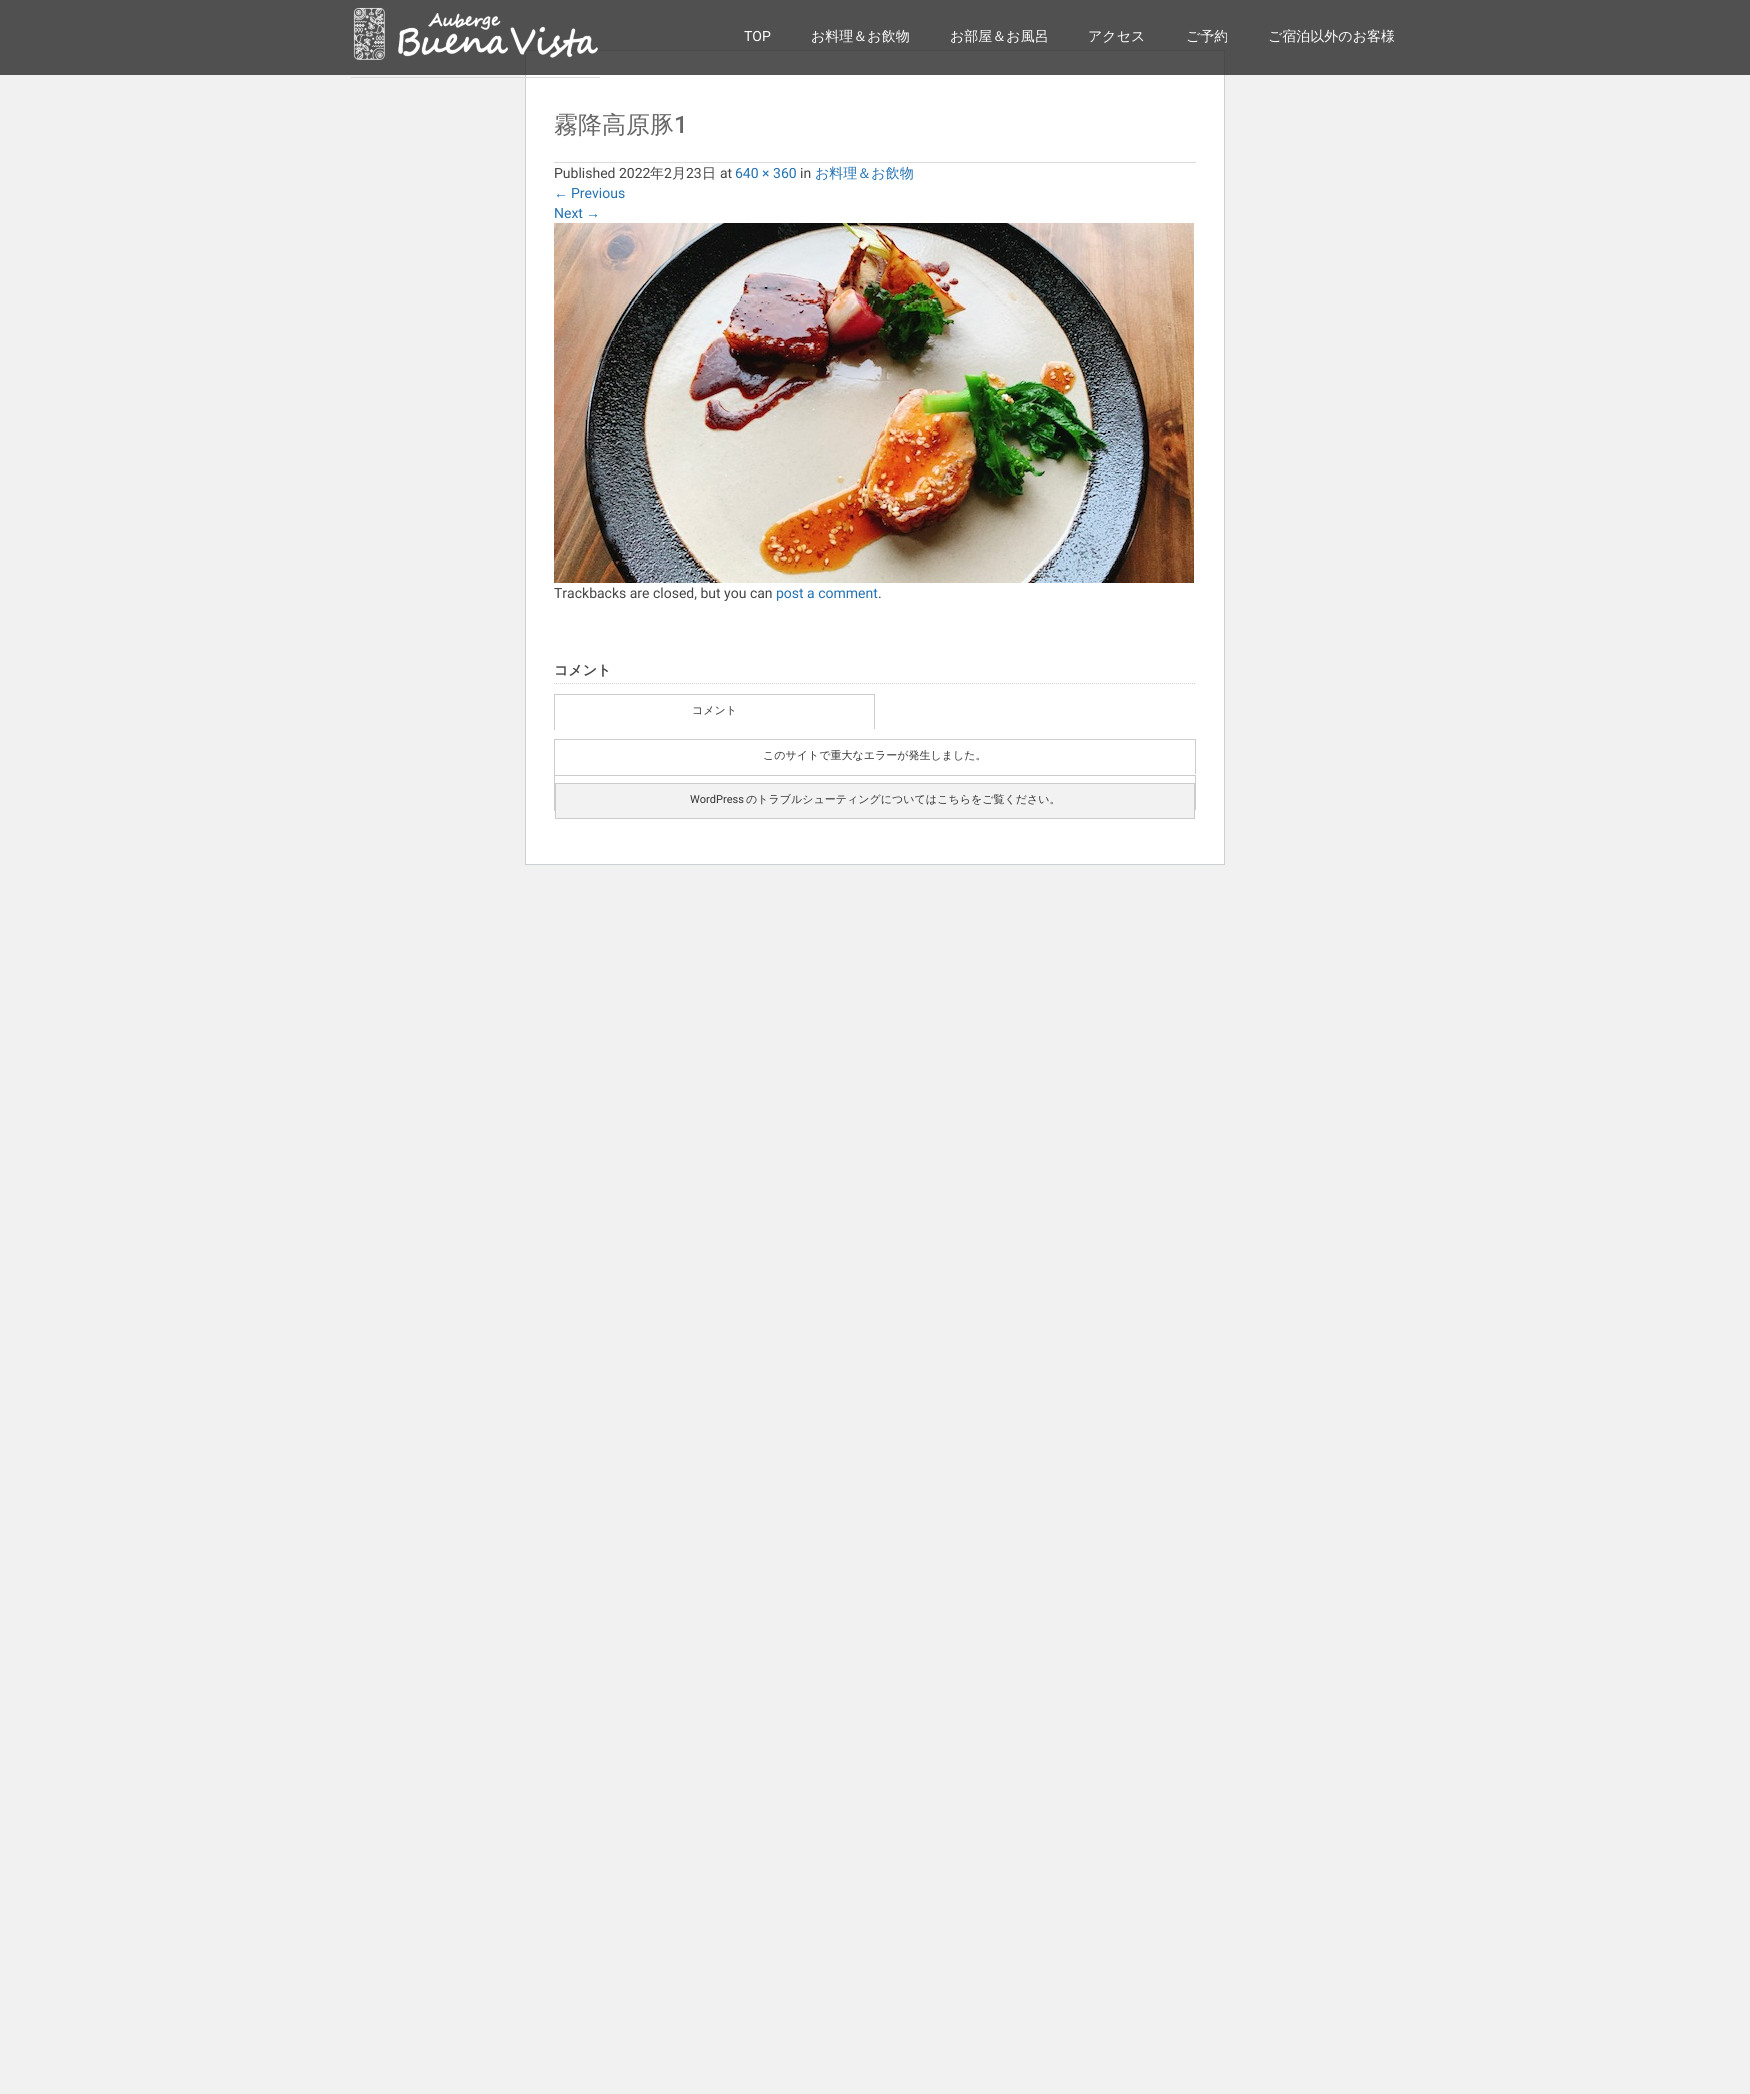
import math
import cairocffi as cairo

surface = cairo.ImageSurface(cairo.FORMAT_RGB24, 1750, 2094)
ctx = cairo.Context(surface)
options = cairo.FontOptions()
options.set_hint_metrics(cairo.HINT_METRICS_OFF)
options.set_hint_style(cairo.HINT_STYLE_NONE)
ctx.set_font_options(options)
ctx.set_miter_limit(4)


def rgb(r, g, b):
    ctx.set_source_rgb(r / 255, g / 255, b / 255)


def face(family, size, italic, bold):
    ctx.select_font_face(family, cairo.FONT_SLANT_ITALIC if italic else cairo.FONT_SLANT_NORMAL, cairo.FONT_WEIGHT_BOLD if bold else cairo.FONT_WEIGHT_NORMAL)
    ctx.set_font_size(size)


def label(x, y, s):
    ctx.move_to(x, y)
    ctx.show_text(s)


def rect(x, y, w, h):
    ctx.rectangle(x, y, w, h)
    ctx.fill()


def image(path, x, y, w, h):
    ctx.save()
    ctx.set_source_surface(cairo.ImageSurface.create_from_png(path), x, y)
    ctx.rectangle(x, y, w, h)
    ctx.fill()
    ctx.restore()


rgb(241, 241, 241)
ctx.paint()
rgb(255, 255, 255)
ctx.rectangle(525.5, 50.5, 699, 814)
ctx.fill_preserve()
rgb(204, 208, 212)
ctx.set_line_width(1)
ctx.stroke()
ctx.set_source_rgba(0.157, 0.157, 0.157, 0.8)
rect(0, 0, 1750, 75)
rgb(218, 218, 218)
rect(351, 77, 249, 1)
image('image0.png', 353, 7, 245, 53)
face('Roboto', 14, 0, 0)
rgb(255, 255, 255)
label(744, 41, 'TOP')
face('WenQuanYi Zen Hei Medium', 14, 0, 0)
label(811, 41, 'お料理＆お飲物')
label(950, 41, 'お部屋＆お風呂')
label(1088, 41, 'アクセス')
label(1186, 41, 'ご予約')
label(1268, 41, 'ご宿泊以外のお客様')
rgb(218, 218, 218)
rect(554, 162, 642, 1)
face('WenQuanYi Zen Hei Medium', 24, 0, 0)
rgb(102, 102, 102)
label(554, 133, '霧降高原豚')
face('Roboto Medium', 24, 0, 0)
label(674, 133, '1')
face('Roboto', 14, 0, 0)
rgb(68, 68, 68)
label(554, 178, 'Published 2022')
face('WenQuanYi Zen Hei Medium', 14, 0, 0)
label(650, 178, '年')
face('Roboto', 14, 0, 0)
label(664, 178, '2')
face('WenQuanYi Zen Hei Medium', 14, 0, 0)
label(672, 178, '月')
face('Roboto', 14, 0, 0)
label(686, 178, '23')
face('WenQuanYi Zen Hei Medium', 14, 0, 0)
label(702, 178, '日')
face('Roboto', 14, 0, 0)
label(720, 178, 'at')
rgb(34, 113, 177)
label(735, 178, '640 × 360')
rgb(68, 68, 68)
label(800, 178, 'in')
face('WenQuanYi Zen Hei Medium', 14, 0, 0)
rgb(34, 113, 177)
label(815, 178, 'お料理＆お飲物')
face('Liberation Sans', 14, 0, 0)
label(554, 198, '←')
face('Roboto', 14, 0, 0)
label(571, 198, 'Previous')
label(554, 218, 'Next')
face('Liberation Sans', 14, 0, 0)
label(586, 218, '→')
image('image1.png', 554, 223, 640, 360)
face('Roboto', 14, 0, 0)
rgb(68, 68, 68)
label(554, 598, 'Trackbacks are closed, but you can')
rgb(34, 113, 177)
label(776, 598, 'post a comment')
rgb(68, 68, 68)
label(878, 598, '.')
ctx.new_path()
ctx.move_to(554, 683.5)
ctx.line_to(1196, 683.5)
rgb(211, 211, 211)
ctx.set_dash([1, 1])
ctx.stroke()
face('WenQuanYi Zen Hei', 14, 0, 1)
rgb(68, 68, 68)
label(554, 675, 'コメント')
rgb(204, 204, 204)
rect(554, 694, 321, 1)
rect(874, 694, 1, 36)
rgb(255, 255, 255)
rect(874, 729, 1, 1)
rgb(204, 204, 204)
rect(554, 694, 1, 36)
face('WenQuanYi Zen Hei Medium', 11, 0, 0)
rgb(51, 51, 51)
label(692, 714, 'コメント')
rgb(204, 204, 204)
rect(554, 739, 642, 1)
rect(1195, 739, 1, 36)
rgb(255, 255, 255)
rect(1195, 774, 1, 1)
rgb(204, 204, 204)
rect(554, 739, 1, 36)
rgb(51, 51, 51)
label(763, 759, 'このサイトで重大なエラーが発生しました。')
rgb(204, 204, 204)
rect(554, 775, 642, 1)
rect(1195, 775, 1, 36)
rgb(255, 255, 255)
rect(1195, 810, 1, 1)
rgb(204, 204, 204)
rect(554, 775, 1, 36)
rgb(242, 242, 242)
ctx.rectangle(555.5, 783.5, 639, 35)
ctx.fill_preserve()
rgb(204, 204, 204)
ctx.set_dash([])
ctx.stroke()
face('Roboto', 11, 0, 0)
rgb(51, 51, 51)
label(690, 803, 'WordPress')
face('WenQuanYi Zen Hei Medium', 11, 0, 0)
label(746, 803, 'のトラブルシューティングについてはこちらをご覧ください。')
surface.write_to_png('render.png')
